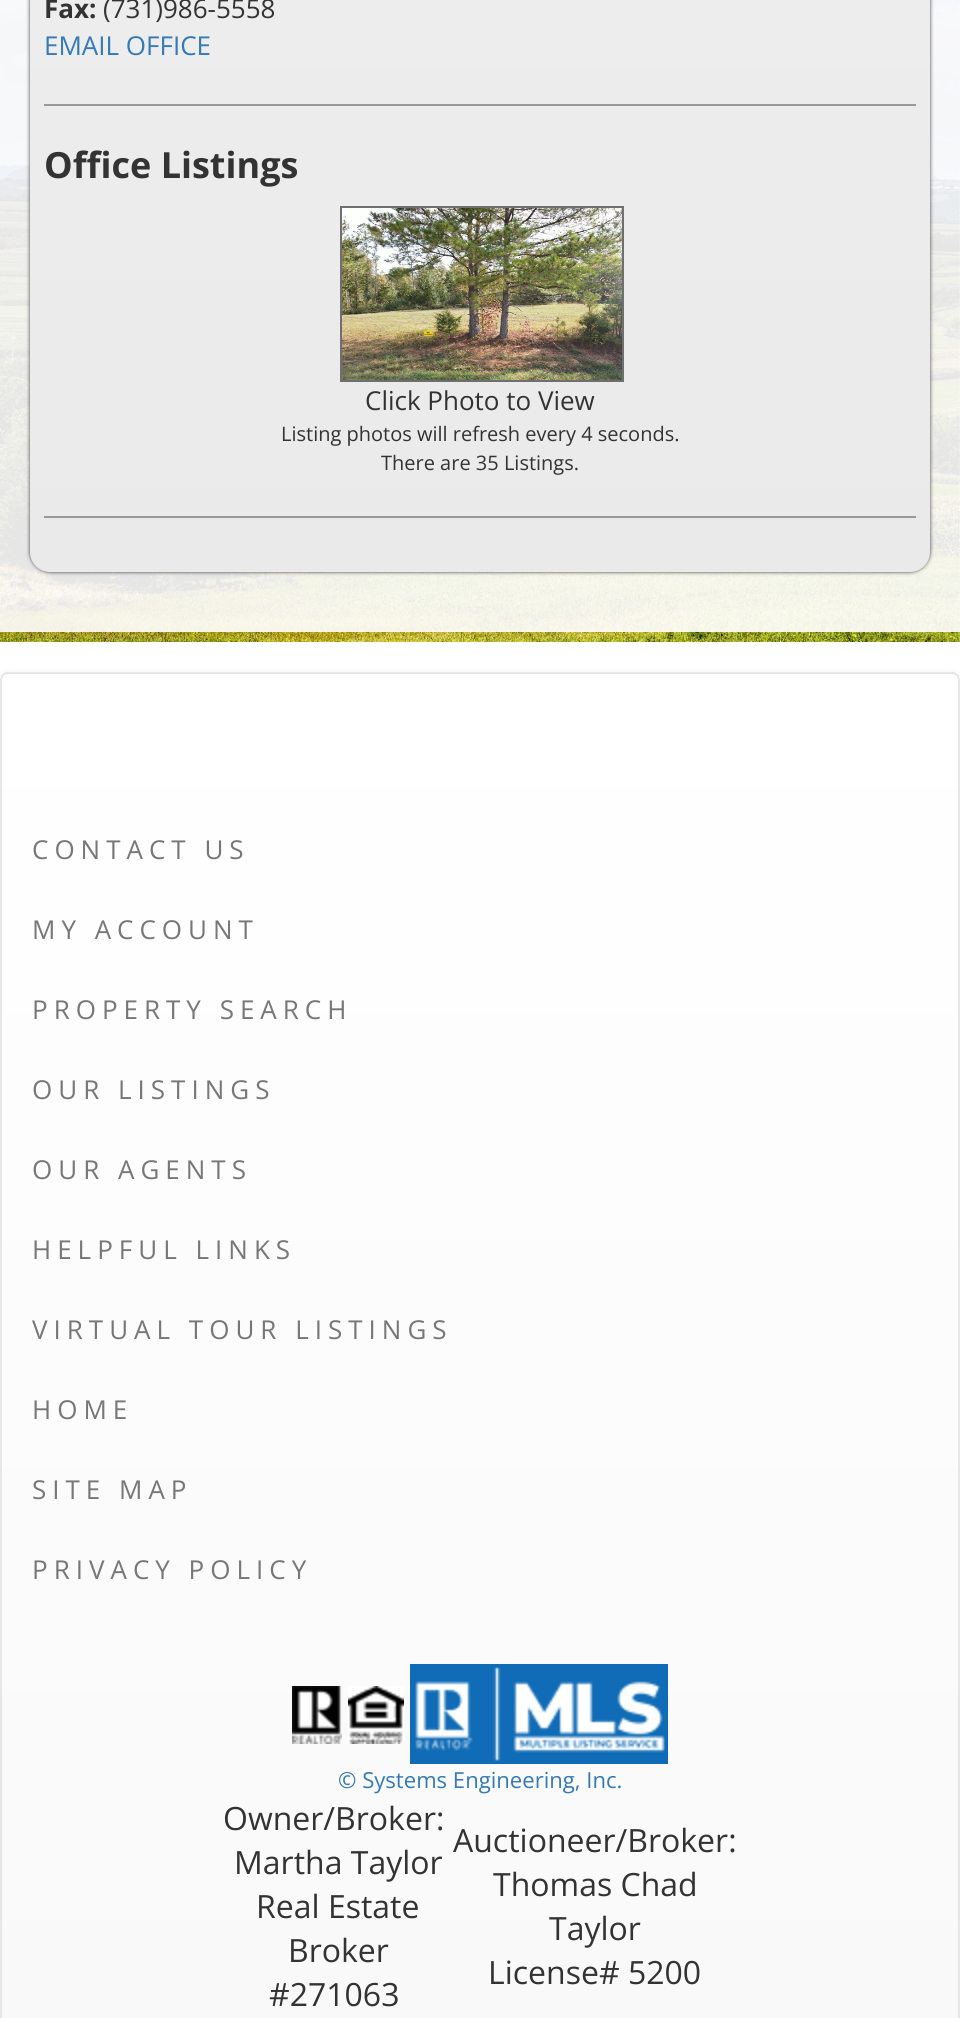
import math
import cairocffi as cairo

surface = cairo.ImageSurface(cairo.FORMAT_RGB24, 960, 2018)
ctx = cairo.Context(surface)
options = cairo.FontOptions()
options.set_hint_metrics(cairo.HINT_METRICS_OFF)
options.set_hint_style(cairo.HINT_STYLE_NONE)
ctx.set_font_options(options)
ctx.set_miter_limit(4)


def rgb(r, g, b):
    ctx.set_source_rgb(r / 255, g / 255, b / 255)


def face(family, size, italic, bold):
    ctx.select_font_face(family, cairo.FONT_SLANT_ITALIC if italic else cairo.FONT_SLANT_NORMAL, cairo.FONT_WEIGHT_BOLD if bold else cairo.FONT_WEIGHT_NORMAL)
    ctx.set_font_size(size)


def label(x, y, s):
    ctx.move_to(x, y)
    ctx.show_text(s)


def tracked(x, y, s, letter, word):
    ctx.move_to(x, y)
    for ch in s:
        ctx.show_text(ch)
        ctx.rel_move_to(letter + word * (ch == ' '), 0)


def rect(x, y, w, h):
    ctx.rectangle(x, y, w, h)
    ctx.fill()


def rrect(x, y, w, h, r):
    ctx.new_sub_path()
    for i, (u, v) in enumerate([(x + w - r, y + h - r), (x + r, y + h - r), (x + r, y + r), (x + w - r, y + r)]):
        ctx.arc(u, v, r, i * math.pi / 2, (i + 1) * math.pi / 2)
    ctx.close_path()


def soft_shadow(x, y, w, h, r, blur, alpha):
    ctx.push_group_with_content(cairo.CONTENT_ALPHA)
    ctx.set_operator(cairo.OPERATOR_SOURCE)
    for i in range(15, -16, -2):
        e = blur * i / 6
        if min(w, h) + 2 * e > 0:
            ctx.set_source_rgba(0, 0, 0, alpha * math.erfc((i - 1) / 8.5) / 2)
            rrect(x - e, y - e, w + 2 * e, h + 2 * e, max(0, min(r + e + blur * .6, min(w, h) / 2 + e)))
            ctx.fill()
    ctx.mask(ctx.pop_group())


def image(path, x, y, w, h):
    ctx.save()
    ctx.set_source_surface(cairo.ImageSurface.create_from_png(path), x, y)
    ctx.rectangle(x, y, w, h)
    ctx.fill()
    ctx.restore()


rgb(255, 255, 255)
ctx.paint()
image('image0.png', 0, 0, 960, 642)
rgb(0, 0, 0)
soft_shadow(30, -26, 900, 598, 20, 2, 0.75)
gradient = cairo.LinearGradient(480, -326, 480, 572)
gradient.add_color_stop_rgba(0, 0.996, 1, 1, 1)
gradient.add_color_stop_rgba(0.35, 0.929, 0.929, 0.929, 1)
gradient.add_color_stop_rgba(1, 0.918, 0.918, 0.918, 1)
ctx.set_source(gradient)
rrect(30, -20, 900, 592, 20)
ctx.fill()
face('Open Sans', 26, 0, 1)
rgb(51, 51, 51)
label(44, 18, 'Fax:')
face('Open Sans', 26, 0, 0)
label(103, 18, '(731)986-5558')
rgb(51, 122, 183)
label(44, 55, 'EMAIL OFFICE')
rgb(153, 153, 153)
rect(44, 104, 872, 2)
face('Open Sans', 36, 0, 1)
rgb(51, 51, 51)
label(44, 178, 'Office Listings')
ctx.rectangle(341, 207, 282, 174)
rgb(111, 111, 111)
ctx.stroke()
image('image1.png', 342, 208, 280, 172)
face('Open Sans', 26, 0, 0)
rgb(51, 51, 51)
label(365, 410, 'Click Photo to View')
face('Open Sans', 20, 0, 0)
label(281, 441, 'Listing photos will refresh every 4 seconds.')
label(381, 470, 'There are 35 Listings.')
rgb(153, 153, 153)
rect(44, 516, 872, 2)
rgb(0, 0, 0)
soft_shadow(0, 674, 960, 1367, 8, 5, 0.07)
ctx.save()
rrect(0, 672, 960, 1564, 8)
ctx.clip()
gradient = cairo.LinearGradient(480, 674, 480, 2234)
gradient.add_color_stop_rgba(0, 1, 1, 1, 1)
gradient.add_color_stop_rgba(1, 0.973, 0.973, 0.973, 1)
ctx.set_source(gradient)
rect(0, 674, 960, 1344)
ctx.restore()
rrect(1, 673, 958, 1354, 7)
rgb(231, 231, 231)
ctx.stroke()
face('Open Sans', 26, 0, 0)
rgb(119, 119, 119)
tracked(32, 859, 'CONTACT US', 6, 0)
tracked(32, 939, 'MY ACCOUNT', 6, 0)
tracked(32, 1019, 'PROPERTY SEARCH', 6, 0)
tracked(32, 1099, 'OUR LISTINGS', 6, 0)
tracked(32, 1179, 'OUR AGENTS', 6, 0)
tracked(32, 1259, 'HELPFUL LINKS', 6, 0)
tracked(32, 1339, 'VIRTUAL TOUR LISTINGS', 6, 0)
tracked(32, 1419, 'HOME', 6, 0)
tracked(32, 1499, 'SITE MAP', 6, 0)
tracked(32, 1579, 'PRIVACY POLICY', 6, 0)
image('image2.png', 292, 1686, 50, 58)
image('image3.png', 348, 1686, 56, 58)
image('image4.png', 410, 1664, 258, 100)
face('Open Sans', 22.1, 0, 0)
rgb(51, 122, 183)
label(338, 1788, '© Systems Engineering, Inc.')
face('Open Sans', 32, 0, 0)
rgb(51, 51, 51)
label(223, 1830, 'Owner/Broker:')
label(234, 1874, 'Martha Taylor')
label(256, 1918, 'Real Estate')
label(288, 1962, 'Broker')
label(269, 2006, '#271063')
label(453, 1852, 'Auctioneer/Broker:')
label(493, 1896, 'Thomas Chad')
label(549, 1940, 'Taylor')
label(488, 1984, 'License# 5200')
surface.write_to_png('render.png')
